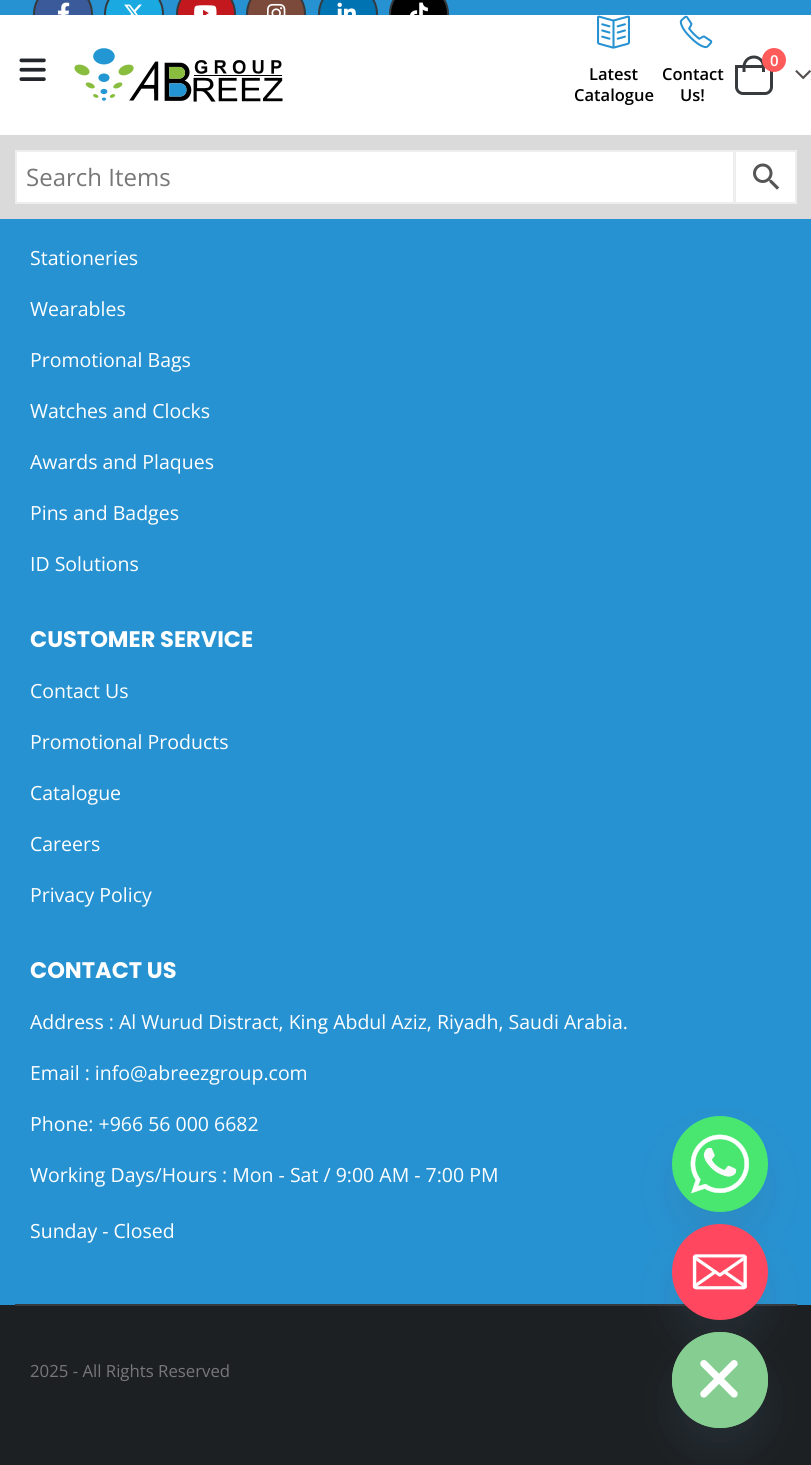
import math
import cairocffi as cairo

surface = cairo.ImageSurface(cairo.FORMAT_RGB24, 811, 1465)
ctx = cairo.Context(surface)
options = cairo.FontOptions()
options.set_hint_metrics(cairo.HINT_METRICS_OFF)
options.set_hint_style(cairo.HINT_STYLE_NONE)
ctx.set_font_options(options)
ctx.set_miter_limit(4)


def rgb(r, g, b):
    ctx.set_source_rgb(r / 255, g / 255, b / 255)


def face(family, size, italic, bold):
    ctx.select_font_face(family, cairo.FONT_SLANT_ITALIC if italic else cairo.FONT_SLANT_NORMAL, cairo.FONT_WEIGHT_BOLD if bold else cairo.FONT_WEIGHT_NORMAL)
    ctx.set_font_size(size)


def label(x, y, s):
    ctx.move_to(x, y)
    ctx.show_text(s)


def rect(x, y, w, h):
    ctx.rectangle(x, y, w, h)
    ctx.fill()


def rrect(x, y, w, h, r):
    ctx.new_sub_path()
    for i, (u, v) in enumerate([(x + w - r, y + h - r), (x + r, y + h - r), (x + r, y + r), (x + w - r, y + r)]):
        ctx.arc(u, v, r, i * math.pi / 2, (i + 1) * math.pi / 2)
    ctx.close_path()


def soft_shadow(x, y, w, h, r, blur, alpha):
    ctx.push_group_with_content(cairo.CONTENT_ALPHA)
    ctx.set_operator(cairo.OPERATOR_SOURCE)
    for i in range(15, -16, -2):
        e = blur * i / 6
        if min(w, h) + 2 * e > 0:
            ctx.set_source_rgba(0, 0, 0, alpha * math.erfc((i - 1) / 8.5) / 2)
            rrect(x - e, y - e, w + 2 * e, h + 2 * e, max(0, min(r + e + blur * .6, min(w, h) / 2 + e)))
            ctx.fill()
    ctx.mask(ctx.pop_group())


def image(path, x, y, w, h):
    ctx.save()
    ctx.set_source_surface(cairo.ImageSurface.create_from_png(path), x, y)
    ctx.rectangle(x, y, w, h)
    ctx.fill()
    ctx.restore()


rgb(39, 146, 209)
ctx.paint()
rgb(59, 90, 154)
ctx.arc(63, 14, 29, 0, 2 * math.pi)
ctx.fill_preserve()
rgb(54, 57, 61)
ctx.stroke()
rgb(26, 169, 225)
ctx.arc(134, 14, 29, 0, 2 * math.pi)
ctx.fill_preserve()
rgb(54, 57, 61)
ctx.stroke()
rgb(195, 25, 30)
ctx.arc(206, 14, 29, 0, 2 * math.pi)
ctx.fill_preserve()
rgb(54, 57, 61)
ctx.stroke()
rgb(124, 74, 58)
ctx.arc(276, 14, 29, 0, 2 * math.pi)
ctx.fill_preserve()
rgb(54, 57, 61)
ctx.stroke()
rgb(0, 115, 178)
ctx.arc(348, 14, 29, 0, 2 * math.pi)
ctx.fill_preserve()
rgb(54, 57, 61)
ctx.stroke()
rgb(1, 1, 1)
ctx.arc(419, 14, 29, 0, 2 * math.pi)
ctx.fill_preserve()
rgb(54, 57, 61)
ctx.stroke()
rgb(255, 255, 255)
rect(0, 15, 811, 120)
image('image0.png', 19, 58, 27, 23)
image('image1.png', 74, 48, 209, 54)
ctx.new_path()
ctx.move_to(736.5, 66.5)
ctx.line_to(771.5, 66.5)
ctx.line_to(771.5, 87)
ctx.curve_to(771.5, 90.5, 768.5, 93.5, 765, 93.5)
ctx.line_to(743, 93.5)
ctx.curve_to(739.5, 93.5, 736.5, 90.5, 736.5, 87)
ctx.close_path()
rgb(56, 59, 62)
ctx.set_line_width(3)
ctx.stroke()
ctx.set_fill_rule(cairo.FILL_RULE_EVEN_ODD)
ctx.new_path()
ctx.move_to(754, 55.5)
ctx.curve_to(760, 55.5, 765, 60.5, 765, 67)
ctx.line_to(765, 72)
ctx.line_to(742.5, 72)
ctx.line_to(742.5, 67)
ctx.curve_to(742.5, 60.5, 747.5, 55.5, 754, 55.5)
ctx.close_path()
ctx.move_to(754, 58.5)
ctx.curve_to(758.5, 58.5, 762, 62, 762, 67)
ctx.line_to(762, 72)
ctx.line_to(745.5, 72)
ctx.line_to(745.5, 67)
ctx.curve_to(745.5, 62, 749, 58.5, 754, 58.5)
ctx.close_path()
ctx.fill()
rgb(255, 91, 91)
ctx.arc(774, 60, 12, 0, 2 * math.pi)
ctx.fill()
face('Open Sans SemiBold', 15, 0, 0)
rgb(255, 255, 255)
label(770, 66, '0')
image('image2.png', 795, 70, 16, 10)
image('image3.png', 597, 15, 33, 34)
face('Open Sans SemiBold', 16.5, 0, 0)
rgb(0, 0, 0)
label(589, 80, 'Latest')
label(574, 101, 'Catalogue')
image('image4.png', 679, 15, 34, 34)
label(662, 80, 'Contact')
label(680, 101, 'Us!')
rgb(218, 218, 218)
rect(0, 135, 811, 84)
rgb(255, 255, 255)
ctx.rectangle(735, 151, 61, 52)
ctx.fill_preserve()
rgb(238, 238, 238)
ctx.set_line_width(2)
ctx.stroke()
rgb(255, 255, 255)
ctx.rectangle(16, 151, 718, 52)
ctx.fill_preserve()
rgb(238, 238, 238)
ctx.stroke()
face('Open Sans', 24, 0, 0)
rgb(119, 119, 119)
label(26, 186, 'Search Items')
image('image5.png', 753, 163, 27, 27)
image('image6.png', 57, 2, 13, 13)
image('image7.png', 124, 4, 18, 11)
image('image8.png', 194, 5, 23, 10)
image('image9.png', 267, 3, 19, 12)
image('image10.png', 337, 2, 19, 13)
image('image11.png', 410, 2, 18, 13)
face('Open Sans', 19.5, 0, 0)
rgb(255, 255, 255)
label(30, 265, 'Stationeries')
label(30, 316, 'Wearables')
label(30, 367, 'Promotional Bags')
label(30, 418, 'Watches and Clocks')
label(30, 469, 'Awards and Plaques')
label(30, 520, 'Pins and Badges')
label(30, 571, 'ID Solutions')
face('Poppins', 22.5, 0, 1)
label(30, 647, 'CUSTOMER SERVICE')
face('Open Sans', 19.5, 0, 0)
label(30, 698, 'Contact Us')
label(30, 749, 'Promotional Products')
label(30, 800, 'Catalogue')
label(30, 851, 'Careers')
label(30, 902, 'Privacy Policy')
face('Poppins', 22.5, 0, 1)
label(30, 978, 'CONTACT US')
face('Open Sans', 19.5, 0, 0)
label(30, 1029, 'Address : Al Wurud Distract, King Abdul Aziz, Riyadh, Saudi Arabia.')
label(30, 1080, 'Email : info@abreezgroup.com')
label(30, 1131, 'Phone: +966 56 000 6682')
label(30, 1182, 'Working Days/Hours : Mon - Sat / 9:00 AM - 7:00 PM')
label(30, 1238, 'Sunday - Closed')
rgb(28, 32, 35)
rect(0, 1305, 811, 160)
rgb(54, 57, 61)
rect(15, 1304, 782, 2)
face('Open Sans', 16.75, 0, 0)
rgb(119, 119, 119)
label(30, 1377, '2025 - All Rights Reserved')
rgb(73, 104, 126)
soft_shadow(672, 1140, 96, 96, 48, 18, 0.16)
image('image12.png', 672, 1116, 96, 96)
soft_shadow(672, 1248, 96, 96, 48, 18, 0.16)
image('image13.png', 672, 1224, 96, 96)
soft_shadow(672, 1356, 96, 96, 48, 18, 0.16)
rgb(134, 205, 145)
ctx.set_fill_rule(cairo.FILL_RULE_WINDING)
ctx.new_path()
ctx.move_to(720, 1428)
ctx.curve_to(693, 1428, 672, 1407, 672, 1380)
ctx.curve_to(672, 1353, 693, 1332, 720, 1332)
ctx.curve_to(747, 1332, 768, 1353, 768, 1380)
ctx.curve_to(768, 1407, 747, 1428, 720, 1428)
ctx.close_path()
ctx.fill()
image('image14.png', 672, 1332, 96, 96)
surface.write_to_png('render.png')
